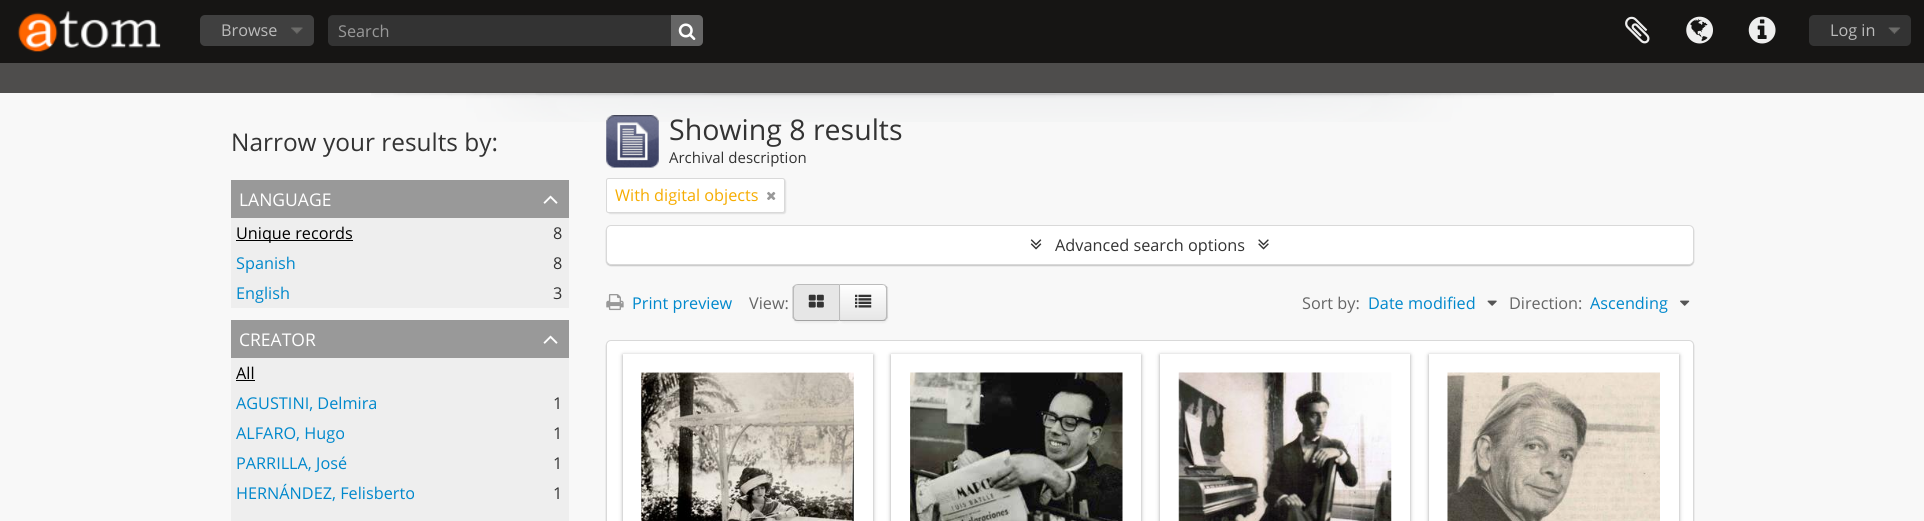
import math
import cairocffi as cairo

surface = cairo.ImageSurface(cairo.FORMAT_RGB24, 1924, 521)
ctx = cairo.Context(surface)
options = cairo.FontOptions()
options.set_hint_metrics(cairo.HINT_METRICS_OFF)
options.set_hint_style(cairo.HINT_STYLE_NONE)
ctx.set_font_options(options)
ctx.set_miter_limit(4)


def rgb(r, g, b):
    ctx.set_source_rgb(r / 255, g / 255, b / 255)


def face(family, size, italic, bold):
    ctx.select_font_face(family, cairo.FONT_SLANT_ITALIC if italic else cairo.FONT_SLANT_NORMAL, cairo.FONT_WEIGHT_BOLD if bold else cairo.FONT_WEIGHT_NORMAL)
    ctx.set_font_size(size)


def label(x, y, s):
    ctx.move_to(x, y)
    ctx.show_text(s)


def rect(x, y, w, h):
    ctx.rectangle(x, y, w, h)
    ctx.fill()


def rrect(x, y, w, h, r):
    ctx.new_sub_path()
    for i, (u, v) in enumerate([(x + w - r, y + h - r), (x + r, y + h - r), (x + r, y + r), (x + w - r, y + r)]):
        ctx.arc(u, v, r, i * math.pi / 2, (i + 1) * math.pi / 2)
    ctx.close_path()


def soft_shadow(x, y, w, h, r, blur, alpha):
    ctx.push_group_with_content(cairo.CONTENT_ALPHA)
    ctx.set_operator(cairo.OPERATOR_SOURCE)
    for i in range(15, -16, -2):
        e = blur * i / 6
        if min(w, h) + 2 * e > 0:
            ctx.set_source_rgba(0, 0, 0, alpha * math.erfc((i - 1) / 8.5) / 2)
            rrect(x - e, y - e, w + 2 * e, h + 2 * e, max(0, min(r + e + blur * .6, min(w, h) / 2 + e)))
            ctx.fill()
    ctx.mask(ctx.pop_group())


def image(path, x, y, w, h):
    ctx.save()
    ctx.set_source_surface(cairo.ImageSurface.create_from_png(path), x, y)
    ctx.rectangle(x, y, w, h)
    ctx.fill()
    ctx.restore()


rgb(248, 248, 248)
ctx.paint()
rgb(22, 21, 20)
rect(0, 0, 1924, 63)
image('image0.png', 17, 11, 144, 41)
rgb(64, 64, 64)
rrect(200, 15, 114, 31, 5)
ctx.fill()
image('image1.png', 291, 27, 12, 7)
face('Open Sans', 16.25, 0, 0)
rgb(187, 187, 187)
label(221, 36, 'Browse')
rgb(51, 51, 51)
rrect(328, 15, 375, 31, 5)
ctx.fill()
ctx.set_source_rgba(0, 0, 0, 0.07)
ctx.new_path()
ctx.move_to(332, 16)
ctx.line_to(698, 16)
ctx.curve_to(700, 16, 702, 18, 702, 21)
ctx.line_to(702, 42)
ctx.line_to(702, 45)
ctx.curve_to(702, 44, 703, 42, 703, 41)
ctx.line_to(703, 20)
ctx.curve_to(703, 17, 701, 15, 698, 15)
ctx.line_to(333, 15)
ctx.curve_to(330, 15, 328, 17, 328, 20)
ctx.line_to(328, 21)
ctx.curve_to(328, 18, 330, 16, 332, 16)
ctx.close_path()
ctx.fill()
rgb(153, 153, 153)
label(338, 37, 'Search')
rgb(102, 102, 102)
ctx.new_path()
ctx.move_to(671, 15)
ctx.line_to(698, 15)
ctx.curve_to(701, 15, 703, 17, 703, 20)
ctx.line_to(703, 41)
ctx.curve_to(703, 44, 701, 46, 698, 46)
ctx.line_to(671, 46)
ctx.close_path()
ctx.fill()
image('image2.png', 678, 23, 18, 17)
image('image3.png', 1625, 16, 25, 28)
image('image4.png', 1686, 16, 27, 28)
image('image5.png', 1748, 16, 28, 28)
rgb(51, 51, 51)
rrect(1809, 15, 102, 31, 5)
ctx.fill()
image('image6.png', 1888, 27, 13, 7)
rgb(187, 187, 187)
label(1830, 36, 'Log in')
image('image7.png', 371, 92, 1183, 30)
ctx.set_source_rgba(0.086, 0.082, 0.078, 0.75)
rect(0, 63, 1924, 30)
face('Open Sans', 24.4, 0, 0)
rgb(51, 51, 51)
label(231, 151, 'Narrow your results by:')
rgb(153, 153, 153)
rect(231, 180, 338, 38)
face('Open Sans', 17.5, 0, 0)
rgb(255, 255, 255)
label(239, 206, 'LANGUAGE')
image('image8.png', 543, 195, 15, 9)
rgb(238, 238, 238)
rect(231, 218, 338, 90)
rgb(0, 0, 0)
rect(236, 240, 117, 1)
face('Open Sans', 16.25, 0, 0)
label(236, 239, 'Unique records')
rgb(51, 51, 51)
label(553, 239, '8')
rgb(0, 136, 204)
label(236, 269, 'Spanish')
rgb(51, 51, 51)
label(553, 269, '8')
rgb(0, 136, 204)
label(236, 299, 'English')
rgb(51, 51, 51)
label(553, 299, '3')
rgb(153, 153, 153)
rect(231, 320, 338, 38)
face('Open Sans', 17.5, 0, 0)
rgb(255, 255, 255)
label(239, 346, 'CREATOR')
image('image8.png', 543, 335, 15, 9)
rgb(238, 238, 238)
rect(231, 358, 338, 163)
face('Open Sans', 16.25, 0, 0)
rgb(0, 0, 0)
label(236, 379, 'All')
rect(236, 380, 19, 1)
rgb(0, 136, 204)
label(236, 409, 'AGUSTINI, Delmira')
rgb(51, 51, 51)
label(553, 409, '1')
rgb(0, 136, 204)
label(236, 439, 'ALFARO, Hugo')
rgb(51, 51, 51)
label(553, 439, '1')
rgb(0, 136, 204)
label(236, 469, 'PARRILLA, José')
rgb(51, 51, 51)
label(553, 469, '1')
rgb(0, 136, 204)
label(236, 499, 'HERNÁNDEZ, Felisberto')
rgb(51, 51, 51)
label(553, 499, '1')
image('image9.png', 606, 115, 53, 53)
face('Open Sans', 28.5, 0, 0)
label(669, 140, 'Showing 8 results')
face('Open Sans', 15, 0, 0)
label(669, 163, 'Archival description')
rgb(0, 0, 0)
soft_shadow(608, 179, 178, 35, 2.5, 0.5, 0.1)
rgb(255, 255, 255)
rrect(606.5, 178.5, 178, 34, 2)
ctx.fill_preserve()
rgb(217, 217, 217)
ctx.set_line_width(1)
ctx.stroke()
face('Open Sans', 16.25, 0, 0)
rgb(246, 172, 0)
label(615, 201, 'With digital objects')
image('image10.png', 767, 191, 9, 9)
rgb(0, 0, 0)
soft_shadow(606, 226, 1088, 40, 5, 0.5, 0.2)
rgb(255, 255, 255)
rrect(606.5, 225.5, 1087, 39, 4.5)
ctx.fill_preserve()
rgb(217, 217, 217)
ctx.stroke()
image('image11.png', 1030, 239, 12, 11)
rgb(51, 51, 51)
label(1055, 251, 'Advanced search options')
image('image12.png', 1258, 239, 11, 11)
image('image13.png', 606, 294, 18, 17)
rgb(0, 136, 204)
label(632, 309, 'Print preview')
rgb(102, 102, 102)
label(749, 309, 'View:')
rgb(0, 0, 0)
soft_shadow(839, 285, 49, 38, 5, 1, 0.05)
rgb(245, 245, 245)
ctx.new_path()
ctx.move_to(839, 284)
ctx.line_to(883, 284)
ctx.curve_to(886, 284, 888, 286, 888, 289)
ctx.line_to(888, 316)
ctx.curve_to(888, 319, 886, 321, 883, 321)
ctx.line_to(839, 321)
ctx.close_path()
ctx.fill()
ctx.save()
ctx.new_path()
ctx.move_to(839, 284)
ctx.line_to(883, 284)
ctx.curve_to(886, 284, 888, 286, 888, 289)
ctx.line_to(888, 316)
ctx.curve_to(888, 319, 886, 321, 883, 321)
ctx.line_to(839, 321)
ctx.close_path()
ctx.clip()
gradient = cairo.LinearGradient(863, 285, 863, 320)
gradient.add_color_stop_rgba(0, 1, 1, 1, 1)
gradient.add_color_stop_rgba(1, 0.902, 0.902, 0.902, 1)
ctx.set_source(gradient)
rect(840, 285, 48, 35)
ctx.restore()
rgb(187, 187, 187)
ctx.new_path()
ctx.move_to(839, 284)
ctx.line_to(840, 285)
ctx.line_to(882, 285)
ctx.curve_to(883, 285, 884, 285, 885, 286)
ctx.line_to(886, 285)
ctx.line_to(882, 284)
ctx.close_path()
ctx.fill()
ctx.new_path()
ctx.move_to(886, 285.5)
ctx.line_to(887.5, 287)
ctx.line_to(887.5, 318)
ctx.line_to(886, 319.5)
ctx.line_to(885, 319)
ctx.curve_to(885.5, 318, 886, 317, 886, 316)
ctx.line_to(886, 289)
ctx.curve_to(886, 288, 885.5, 287, 885, 286)
ctx.close_path()
ctx.fill()
rgb(162, 162, 162)
ctx.new_path()
ctx.move_to(886, 320)
ctx.curve_to(885, 321, 883, 321, 882, 321)
ctx.line_to(839, 321)
ctx.line_to(840, 320)
ctx.line_to(882, 320)
ctx.curve_to(883, 320, 884, 320, 885, 319)
ctx.close_path()
ctx.fill()
rgb(0, 0, 0)
soft_shadow(793, 285, 47, 38, 5, 1, 0.05)
rgb(230, 230, 230)
ctx.new_path()
ctx.move_to(798, 284)
ctx.line_to(840, 284)
ctx.line_to(840, 321)
ctx.line_to(798, 321)
ctx.curve_to(795, 321, 793, 319, 793, 316)
ctx.line_to(793, 289)
ctx.curve_to(793, 286, 795, 284, 798, 284)
ctx.close_path()
ctx.fill()
rgb(187, 187, 187)
ctx.new_path()
ctx.move_to(798, 284)
ctx.line_to(794, 285)
ctx.line_to(795, 286)
ctx.curve_to(796, 285, 797, 285, 798, 285)
ctx.line_to(839, 285)
ctx.line_to(840, 284)
ctx.close_path()
ctx.fill()
ctx.new_path()
ctx.move_to(840, 321)
ctx.line_to(840, 284)
ctx.line_to(839, 285)
ctx.line_to(839, 320)
ctx.close_path()
ctx.fill()
rgb(162, 162, 162)
ctx.new_path()
ctx.move_to(840, 321)
ctx.line_to(798, 321)
ctx.curve_to(797, 321, 795, 321, 794, 320)
ctx.line_to(795, 319)
ctx.curve_to(796, 320, 797, 320, 798, 320)
ctx.line_to(839, 320)
ctx.close_path()
ctx.fill()
rgb(187, 187, 187)
ctx.new_path()
ctx.move_to(792.5, 287)
ctx.line_to(794, 285.5)
ctx.line_to(795, 286)
ctx.curve_to(794.5, 287, 794, 288, 794, 289)
ctx.line_to(794, 316)
ctx.curve_to(794, 317, 794.5, 318, 795, 319)
ctx.line_to(794, 319.5)
ctx.line_to(792.5, 318)
ctx.close_path()
ctx.fill()
image('image14.png', 808, 294, 16, 14)
image('image15.png', 855, 294, 17, 14)
rgb(102, 102, 102)
label(1302, 309, 'Sort by:')
rgb(0, 136, 204)
label(1368, 309, 'Date modified')
image('image16.png', 1487, 300, 10, 6)
rgb(102, 102, 102)
label(1509, 309, 'Direction:')
rgb(0, 136, 204)
label(1590, 309, 'Ascending')
image('image17.png', 1680, 300, 10, 6)
rgb(0, 0, 0)
soft_shadow(606, 341, 1088, 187, 5, 0.5, 0.2)
rgb(255, 255, 255)
rrect(606.5, 340.5, 1087, 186, 4.5)
ctx.fill_preserve()
rgb(217, 217, 217)
ctx.stroke()
rgb(25, 25, 25)
soft_shadow(623, 355, 250, 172, 0, 2, 0.4)
rgb(255, 255, 255)
rect(623, 354, 250, 167)
image('image18.png', 641, 372, 213, 149)
rgb(25, 25, 25)
soft_shadow(891, 355, 250, 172, 0, 2, 0.4)
rgb(255, 255, 255)
rect(891, 354, 250, 167)
image('image19.png', 910, 372, 213, 149)
ctx.save()
ctx.set_fill_rule(cairo.FILL_RULE_EVEN_ODD)
ctx.new_path()
ctx.move_to(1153, 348)
ctx.line_to(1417, 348)
ctx.line_to(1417, 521)
ctx.line_to(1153, 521)
ctx.close_path()
ctx.move_to(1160, 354)
ctx.line_to(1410, 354)
ctx.line_to(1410, 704)
ctx.line_to(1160, 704)
ctx.close_path()
ctx.clip()
rgb(25, 25, 25)
soft_shadow(1160, 355, 250, 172, 0, 2, 0.4)
ctx.restore()
image('image20.png', 1178, 372, 214, 149)
rgb(25, 25, 25)
soft_shadow(1429, 355, 250, 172, 0, 2, 0.4)
rgb(255, 255, 255)
rect(1429, 354, 250, 167)
image('image21.png', 1447, 372, 213, 149)
surface.write_to_png('render.png')
